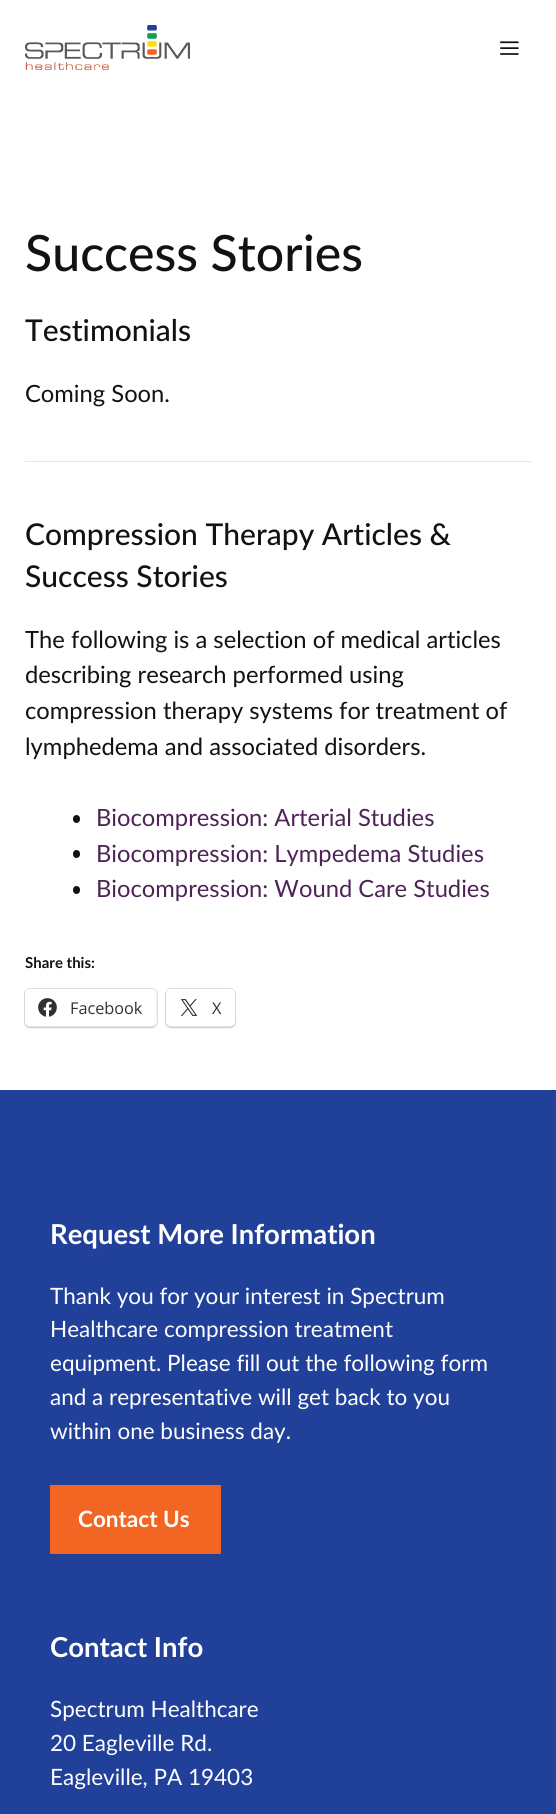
import math
import cairocffi as cairo

surface = cairo.ImageSurface(cairo.FORMAT_RGB24, 556, 1814)
ctx = cairo.Context(surface)
options = cairo.FontOptions()
options.set_hint_metrics(cairo.HINT_METRICS_OFF)
options.set_hint_style(cairo.HINT_STYLE_NONE)
ctx.set_font_options(options)
ctx.set_miter_limit(4)


def rgb(r, g, b):
    ctx.set_source_rgb(r / 255, g / 255, b / 255)


def face(family, size, italic, bold):
    ctx.select_font_face(family, cairo.FONT_SLANT_ITALIC if italic else cairo.FONT_SLANT_NORMAL, cairo.FONT_WEIGHT_BOLD if bold else cairo.FONT_WEIGHT_NORMAL)
    ctx.set_font_size(size)


def label(x, y, s):
    ctx.move_to(x, y)
    ctx.show_text(s)


def rect(x, y, w, h):
    ctx.rectangle(x, y, w, h)
    ctx.fill()


def rrect(x, y, w, h, r):
    ctx.new_sub_path()
    for i, (u, v) in enumerate([(x + w - r, y + h - r), (x + r, y + h - r), (x + r, y + r), (x + w - r, y + r)]):
        ctx.arc(u, v, r, i * math.pi / 2, (i + 1) * math.pi / 2)
    ctx.close_path()


def soft_shadow(x, y, w, h, r, blur, alpha):
    ctx.push_group_with_content(cairo.CONTENT_ALPHA)
    ctx.set_operator(cairo.OPERATOR_SOURCE)
    for i in range(15, -16, -2):
        e = blur * i / 6
        if min(w, h) + 2 * e > 0:
            ctx.set_source_rgba(0, 0, 0, alpha * math.erfc((i - 1) / 8.5) / 2)
            rrect(x - e, y - e, w + 2 * e, h + 2 * e, max(0, min(r + e + blur * .6, min(w, h) / 2 + e)))
            ctx.fill()
    ctx.mask(ctx.pop_group())


def image(path, x, y, w, h):
    ctx.save()
    ctx.set_source_surface(cairo.ImageSurface.create_from_png(path), x, y)
    ctx.rectangle(x, y, w, h)
    ctx.fill()
    ctx.restore()


rgb(255, 255, 255)
ctx.paint()
image('image0.png', 25, 25, 165, 45)
image('image1.png', 500, 41, 19, 14)
face('Lato Medium', 50, 0, 0)
rgb(18, 18, 18)
label(25, 271, 'Success Stories')
face('Lato Medium', 30, 0, 0)
label(25, 341, 'Testimonials')
face('Lato', 23.75, 0, 0)
label(25, 402, 'Coming Soon.')
rgb(230, 230, 230)
rect(25, 461, 506, 1)
face('Lato Medium', 30, 0, 0)
rgb(18, 18, 18)
label(25, 545, 'Compression Therapy Articles &')
label(25, 587, 'Success Stories')
face('Lato', 23.75, 0, 0)
label(25, 648, 'The following is a selection of medical articles')
label(25, 683, 'describing research performed using')
label(25, 719, 'compression therapy systems for treatment of')
label(25, 755, 'lymphedema and associated disorders.')
rrect(73, 815, 7, 8, 3.5)
ctx.fill()
rgb(78, 36, 87)
label(96, 826, 'Biocompression: Arterial Studies')
rgb(18, 18, 18)
rrect(73, 850, 7, 8, 3.5)
ctx.fill()
rgb(78, 36, 87)
label(96, 862, 'Biocompression: Lympedema Studies')
rgb(18, 18, 18)
rrect(73, 886, 7, 8, 3.5)
ctx.fill()
rgb(78, 36, 87)
label(96, 897, 'Biocompression: Wound Care Studies')
face('Lato', 15, 0, 1)
rgb(18, 18, 18)
label(25, 968, 'Share this:')
rrect(24.5, 988.5, 133, 39, 5.5)
rgb(224, 224, 224)
ctx.set_line_width(1)
ctx.stroke()
rgb(0, 0, 0)
soft_shadow(25, 990, 131, 38, 5, 1, 0.12)
rgb(255, 255, 255)
rrect(25, 989, 131, 37, 5)
ctx.fill()
image('image2.png', 38, 998, 19, 19)
face('Open Sans', 16.25, 0, 0)
rgb(44, 51, 56)
label(70, 1014, 'Facebook')
rrect(165.5, 988.5, 70, 39, 5.5)
rgb(224, 224, 224)
ctx.stroke()
rgb(0, 0, 0)
soft_shadow(166, 990, 69, 38, 5, 1, 0.12)
rgb(255, 255, 255)
rrect(166, 989, 69, 37, 5)
ctx.fill()
image('image3.png', 180, 999, 18, 17)
rgb(44, 51, 56)
label(212, 1014, 'X')
rgb(33, 64, 154)
rect(0, 1090, 556, 724)
face('Lato', 27.5, 0, 1)
rgb(255, 255, 255)
label(50, 1244, 'Request More Information')
face('Lato', 22.5, 0, 0)
label(50, 1304, 'Thank you for your interest in Spectrum')
label(50, 1337, 'Healthcare compression treatment')
label(50, 1371, 'equipment. Please fill out the following form')
label(50, 1405, 'and a representative will get back to you')
label(50, 1439, 'within one business day.')
rgb(242, 101, 35)
rect(50, 1485, 171, 69)
face('Lato', 22.5, 0, 1)
rgb(255, 255, 255)
label(78, 1527, 'Contact Us')
face('Lato', 27.5, 0, 1)
label(50, 1657, 'Contact Info')
face('Lato', 22.5, 0, 0)
label(50, 1717, 'Spectrum Healthcare')
label(50, 1751, '20 Eagleville Rd.')
label(50, 1785, 'Eagleville, PA 19403')
surface.write_to_png('render.png')
